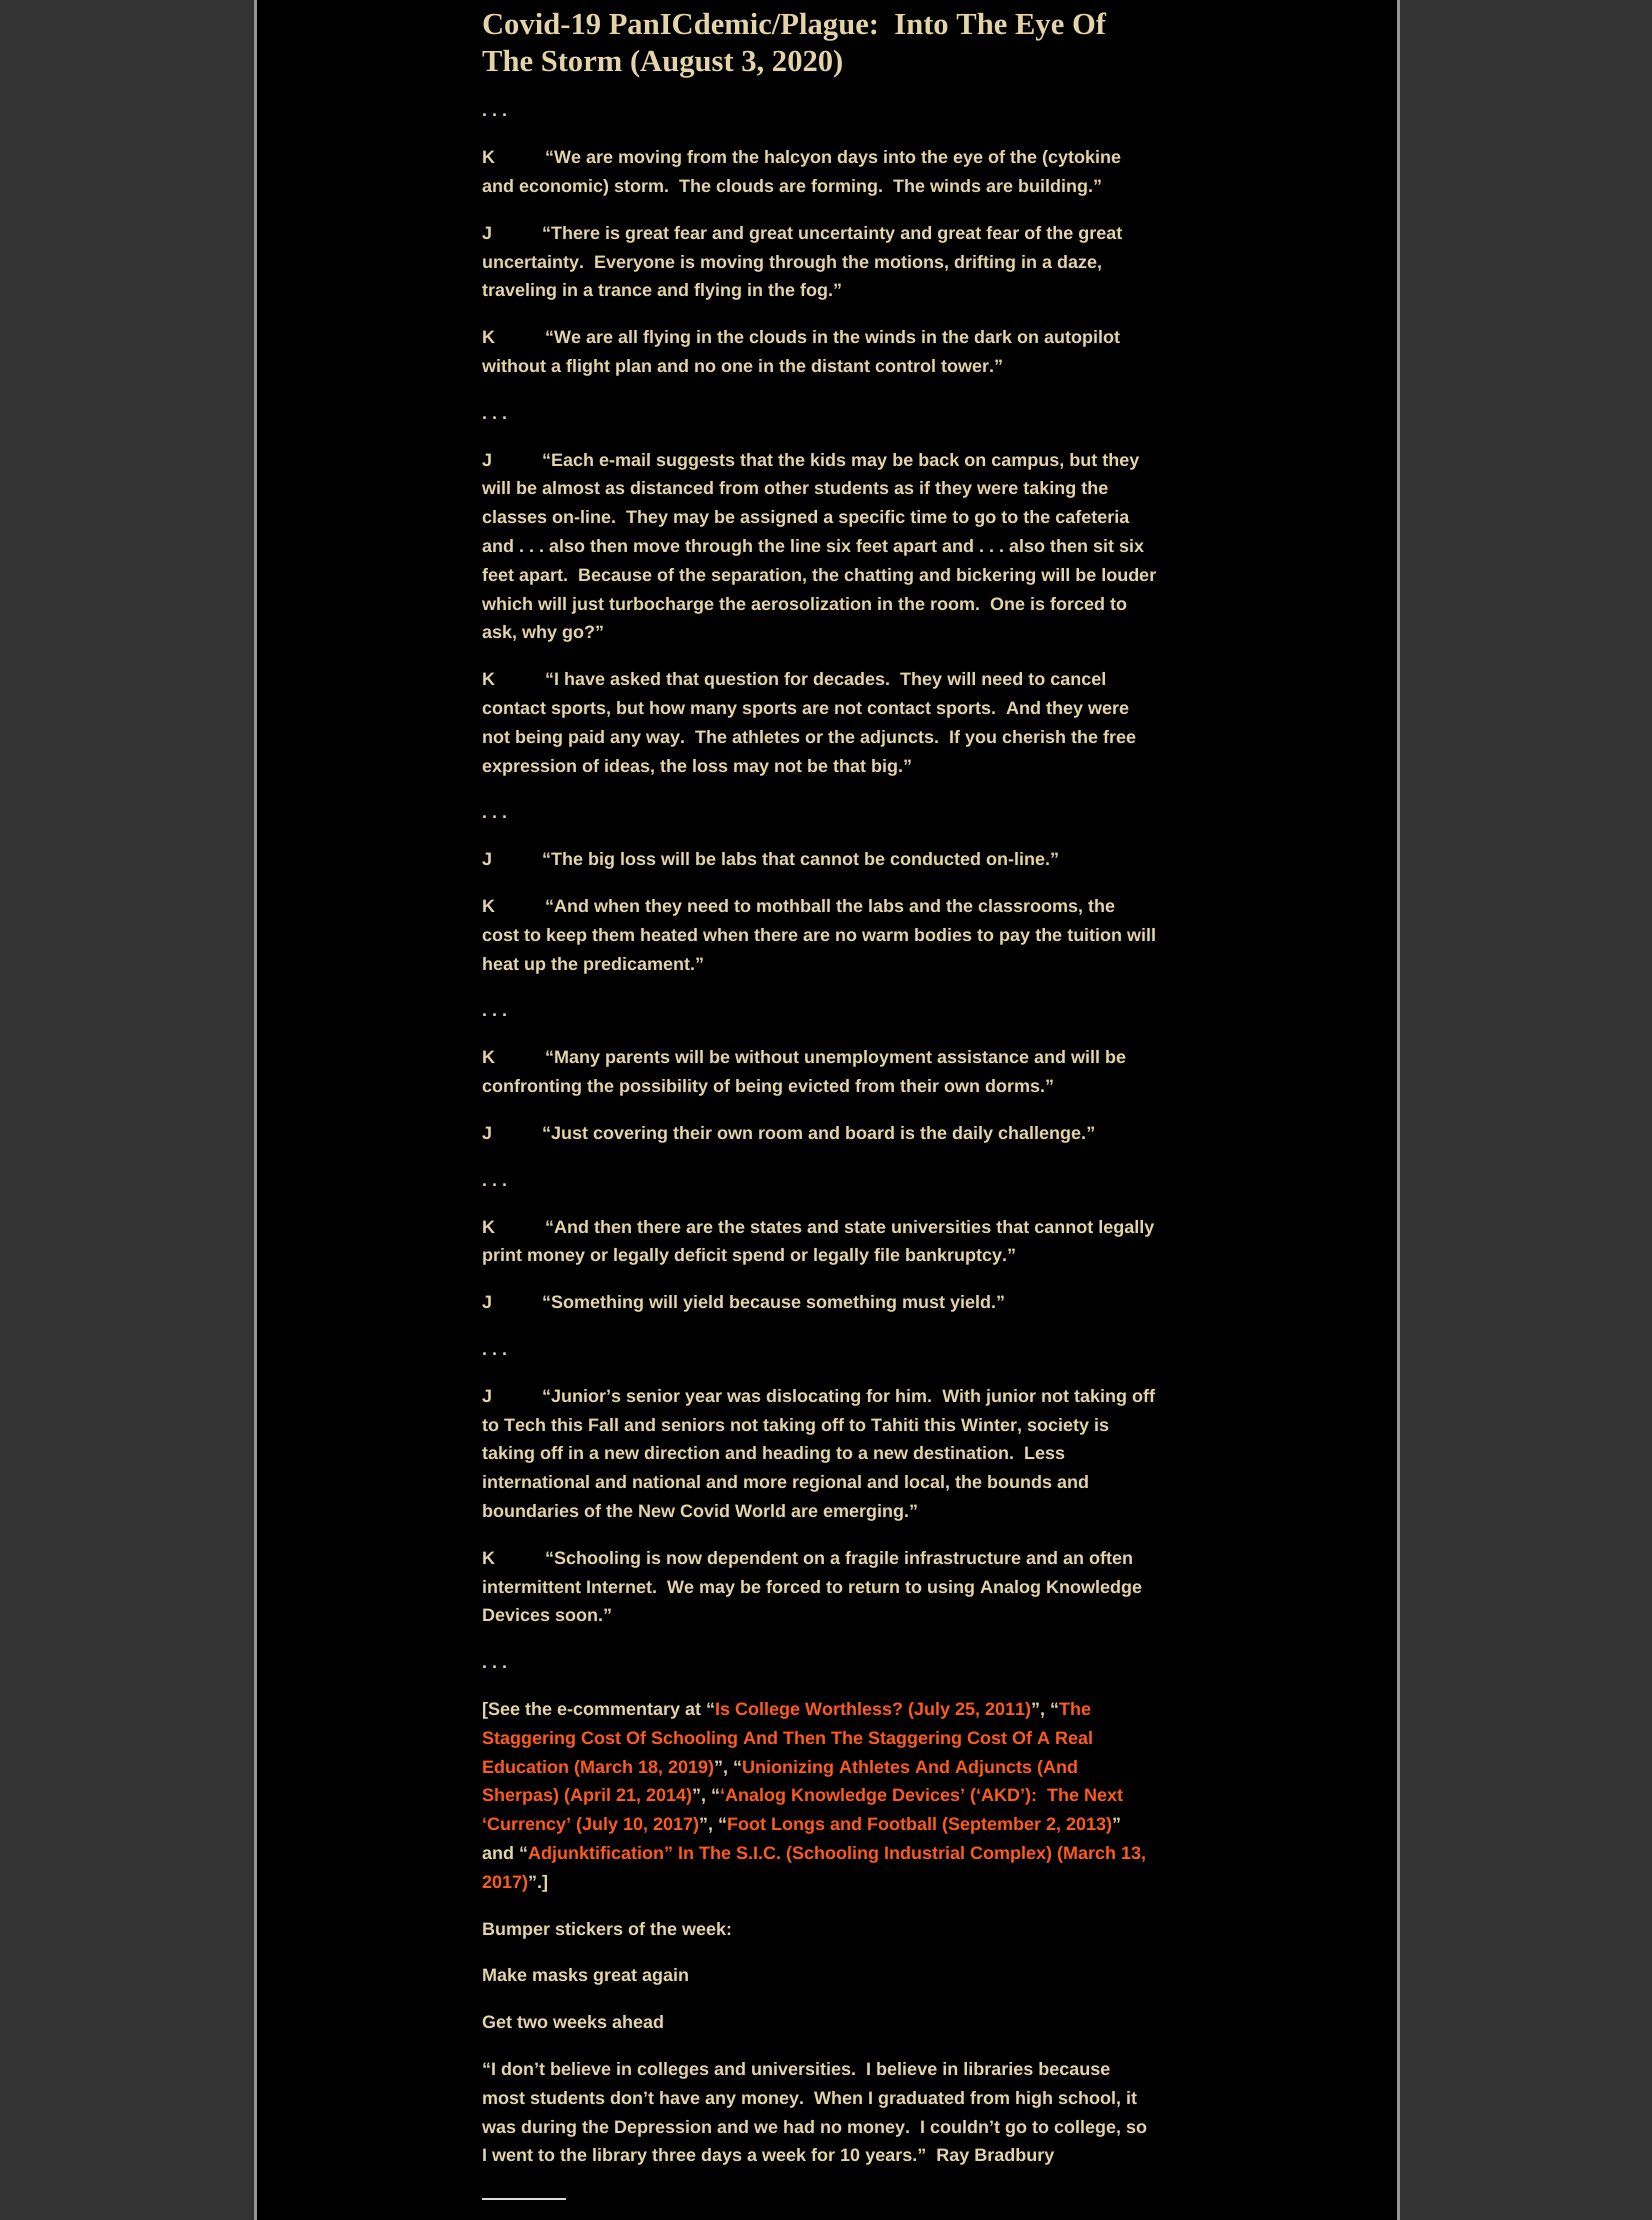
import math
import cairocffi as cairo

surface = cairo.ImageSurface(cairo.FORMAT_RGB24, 1652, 2220)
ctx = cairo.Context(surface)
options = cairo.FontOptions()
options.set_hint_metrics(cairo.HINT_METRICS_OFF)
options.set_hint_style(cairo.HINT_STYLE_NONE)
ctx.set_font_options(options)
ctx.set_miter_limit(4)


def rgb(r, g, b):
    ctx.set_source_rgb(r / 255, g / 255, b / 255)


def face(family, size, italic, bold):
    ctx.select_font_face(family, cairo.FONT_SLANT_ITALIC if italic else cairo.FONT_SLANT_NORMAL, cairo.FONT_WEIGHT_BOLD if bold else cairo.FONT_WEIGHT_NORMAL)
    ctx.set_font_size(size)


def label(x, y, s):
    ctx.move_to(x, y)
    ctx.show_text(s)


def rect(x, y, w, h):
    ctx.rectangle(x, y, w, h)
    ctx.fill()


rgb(51, 51, 51)
ctx.paint()
rgb(0, 0, 0)
ctx.rectangle(255.5, -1.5, 1143, 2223)
ctx.fill_preserve()
rgb(149, 149, 150)
ctx.set_line_width(3)
ctx.stroke()
face('Liberation Serif', 30.6, 0, 1)
rgb(228, 211, 166)
label(482, 34, 'Covid-19 PanICdemic/Plague:  Into The Eye Of')
label(482, 71, 'The Storm (August 3, 2020)')
face('Liberation Sans', 18, 0, 1)
label(482, 116, '. . .')
label(482, 163, 'K          “We are moving from the halcyon days into the eye of the (cytokine')
label(482, 192, 'and economic) storm.  The clouds are forming.  The winds are building.”')
label(482, 239, 'J          “There is great fear and great uncertainty and great fear of the great')
label(482, 268, 'uncertainty.  Everyone is moving through the motions, drifting in a daze,')
label(482, 296, 'traveling in a trance and flying in the fog.”')
label(482, 343, 'K          “We are all flying in the clouds in the winds in the dark on autopilot')
label(482, 372, 'without a flight plan and no one in the distant control tower.”')
label(482, 419, '. . .')
label(482, 466, 'J          “Each e-mail suggests that the kids may be back on campus, but they')
label(482, 494, 'will be almost as distanced from other students as if they were taking the')
label(482, 523, 'classes on-line.  They may be assigned a specific time to go to the cafeteria')
label(482, 552, 'and . . . also then move through the line six feet apart and . . . also then sit six')
label(482, 581, 'feet apart.  Because of the separation, the chatting and bickering will be louder')
label(482, 610, 'which will just turbocharge the aerosolization in the room.  One is forced to')
label(482, 638, 'ask, why go?”')
label(482, 685, 'K          “I have asked that question for decades.  They will need to cancel')
label(482, 714, 'contact sports, but how many sports are not contact sports.  And they were')
label(482, 743, 'not being paid any way.  The athletes or the adjuncts.  If you cherish the free')
label(482, 772, 'expression of ideas, the loss may not be that big.”')
label(482, 818, '. . .')
label(482, 865, 'J          “The big loss will be labs that cannot be conducted on-line.”')
label(482, 912, 'K          “And when they need to mothball the labs and the classrooms, the')
label(482, 941, 'cost to keep them heated when there are no warm bodies to pay the tuition will')
label(482, 970, 'heat up the predicament.”')
label(482, 1016, '. . .')
label(482, 1063, 'K          “Many parents will be without unemployment assistance and will be')
label(482, 1092, 'confronting the possibility of being evicted from their own dorms.”')
label(482, 1139, 'J          “Just covering their own room and board is the daily challenge.”')
label(482, 1186, '. . .')
label(482, 1233, 'K          “And then there are the states and state universities that cannot legally')
label(482, 1261, 'print money or legally deficit spend or legally file bankruptcy.”')
label(482, 1308, 'J          “Something will yield because something must yield.”')
label(482, 1355, '. . .')
label(482, 1402, 'J          “Junior’s senior year was dislocating for him.  With junior not taking off')
label(482, 1431, 'to Tech this Fall and seniors not taking off to Tahiti this Winter, society is')
label(482, 1459, 'taking off in a new direction and heading to a new destination.  Less')
label(482, 1488, 'international and national and more regional and local, the bounds and')
label(482, 1517, 'boundaries of the New Covid World are emerging.”')
label(482, 1564, 'K          “Schooling is now dependent on a fragile infrastructure and an often')
label(482, 1593, 'intermittent Internet.  We may be forced to return to using Analog Knowledge')
label(482, 1621, 'Devices soon.”')
label(482, 1668, '. . .')
label(482, 1715, '[See the e-commentary at “')
rgb(253, 90, 30)
label(715, 1715, 'Is College Worthless? (July 25, 2011)')
rgb(228, 211, 166)
label(1031, 1715, '”, “')
rgb(253, 90, 30)
label(1059, 1715, 'The')
label(482, 1744, 'Staggering Cost Of Schooling And Then The Staggering Cost Of A Real')
label(482, 1773, 'Education (March 18, 2019)')
rgb(228, 211, 166)
label(714, 1773, '”, “')
rgb(253, 90, 30)
label(742, 1773, 'Unionizing Athletes And Adjuncts (And')
label(482, 1801, 'Sherpas) (April 21, 2014)')
rgb(228, 211, 166)
label(692, 1801, '”, “')
rgb(253, 90, 30)
label(720, 1801, '‘Analog Knowledge Devices’ (‘AKD’):  The Next')
label(482, 1830, '‘Currency’ (July 10, 2017)')
rgb(228, 211, 166)
label(699, 1830, '”, “')
rgb(253, 90, 30)
label(727, 1830, 'Foot Longs and Football (September 2, 2013)')
rgb(228, 211, 166)
label(1112, 1830, '”')
label(482, 1859, 'and “')
rgb(253, 90, 30)
label(528, 1859, 'Adjunktification” In The S.I.C. (Schooling Industrial Complex) (March 13,')
label(482, 1888, '2017)')
rgb(228, 211, 166)
label(528, 1888, '”.]')
label(482, 1935, 'Bumper stickers of the week:')
label(482, 1981, 'Make masks great again')
label(482, 2028, 'Get two weeks ahead')
label(482, 2075, '“I don’t believe in colleges and universities.  I believe in libraries because')
label(482, 2104, 'most students don’t have any money.  When I graduated from high school, it')
label(482, 2133, 'was during the Depression and we had no money.  I couldn’t go to college, so')
label(482, 2161, 'I went to the library three days a week for 10 years.”  Ray Bradbury')
rgb(220, 220, 222)
rect(482, 2198, 84, 2)
surface.write_to_png('render.png')
